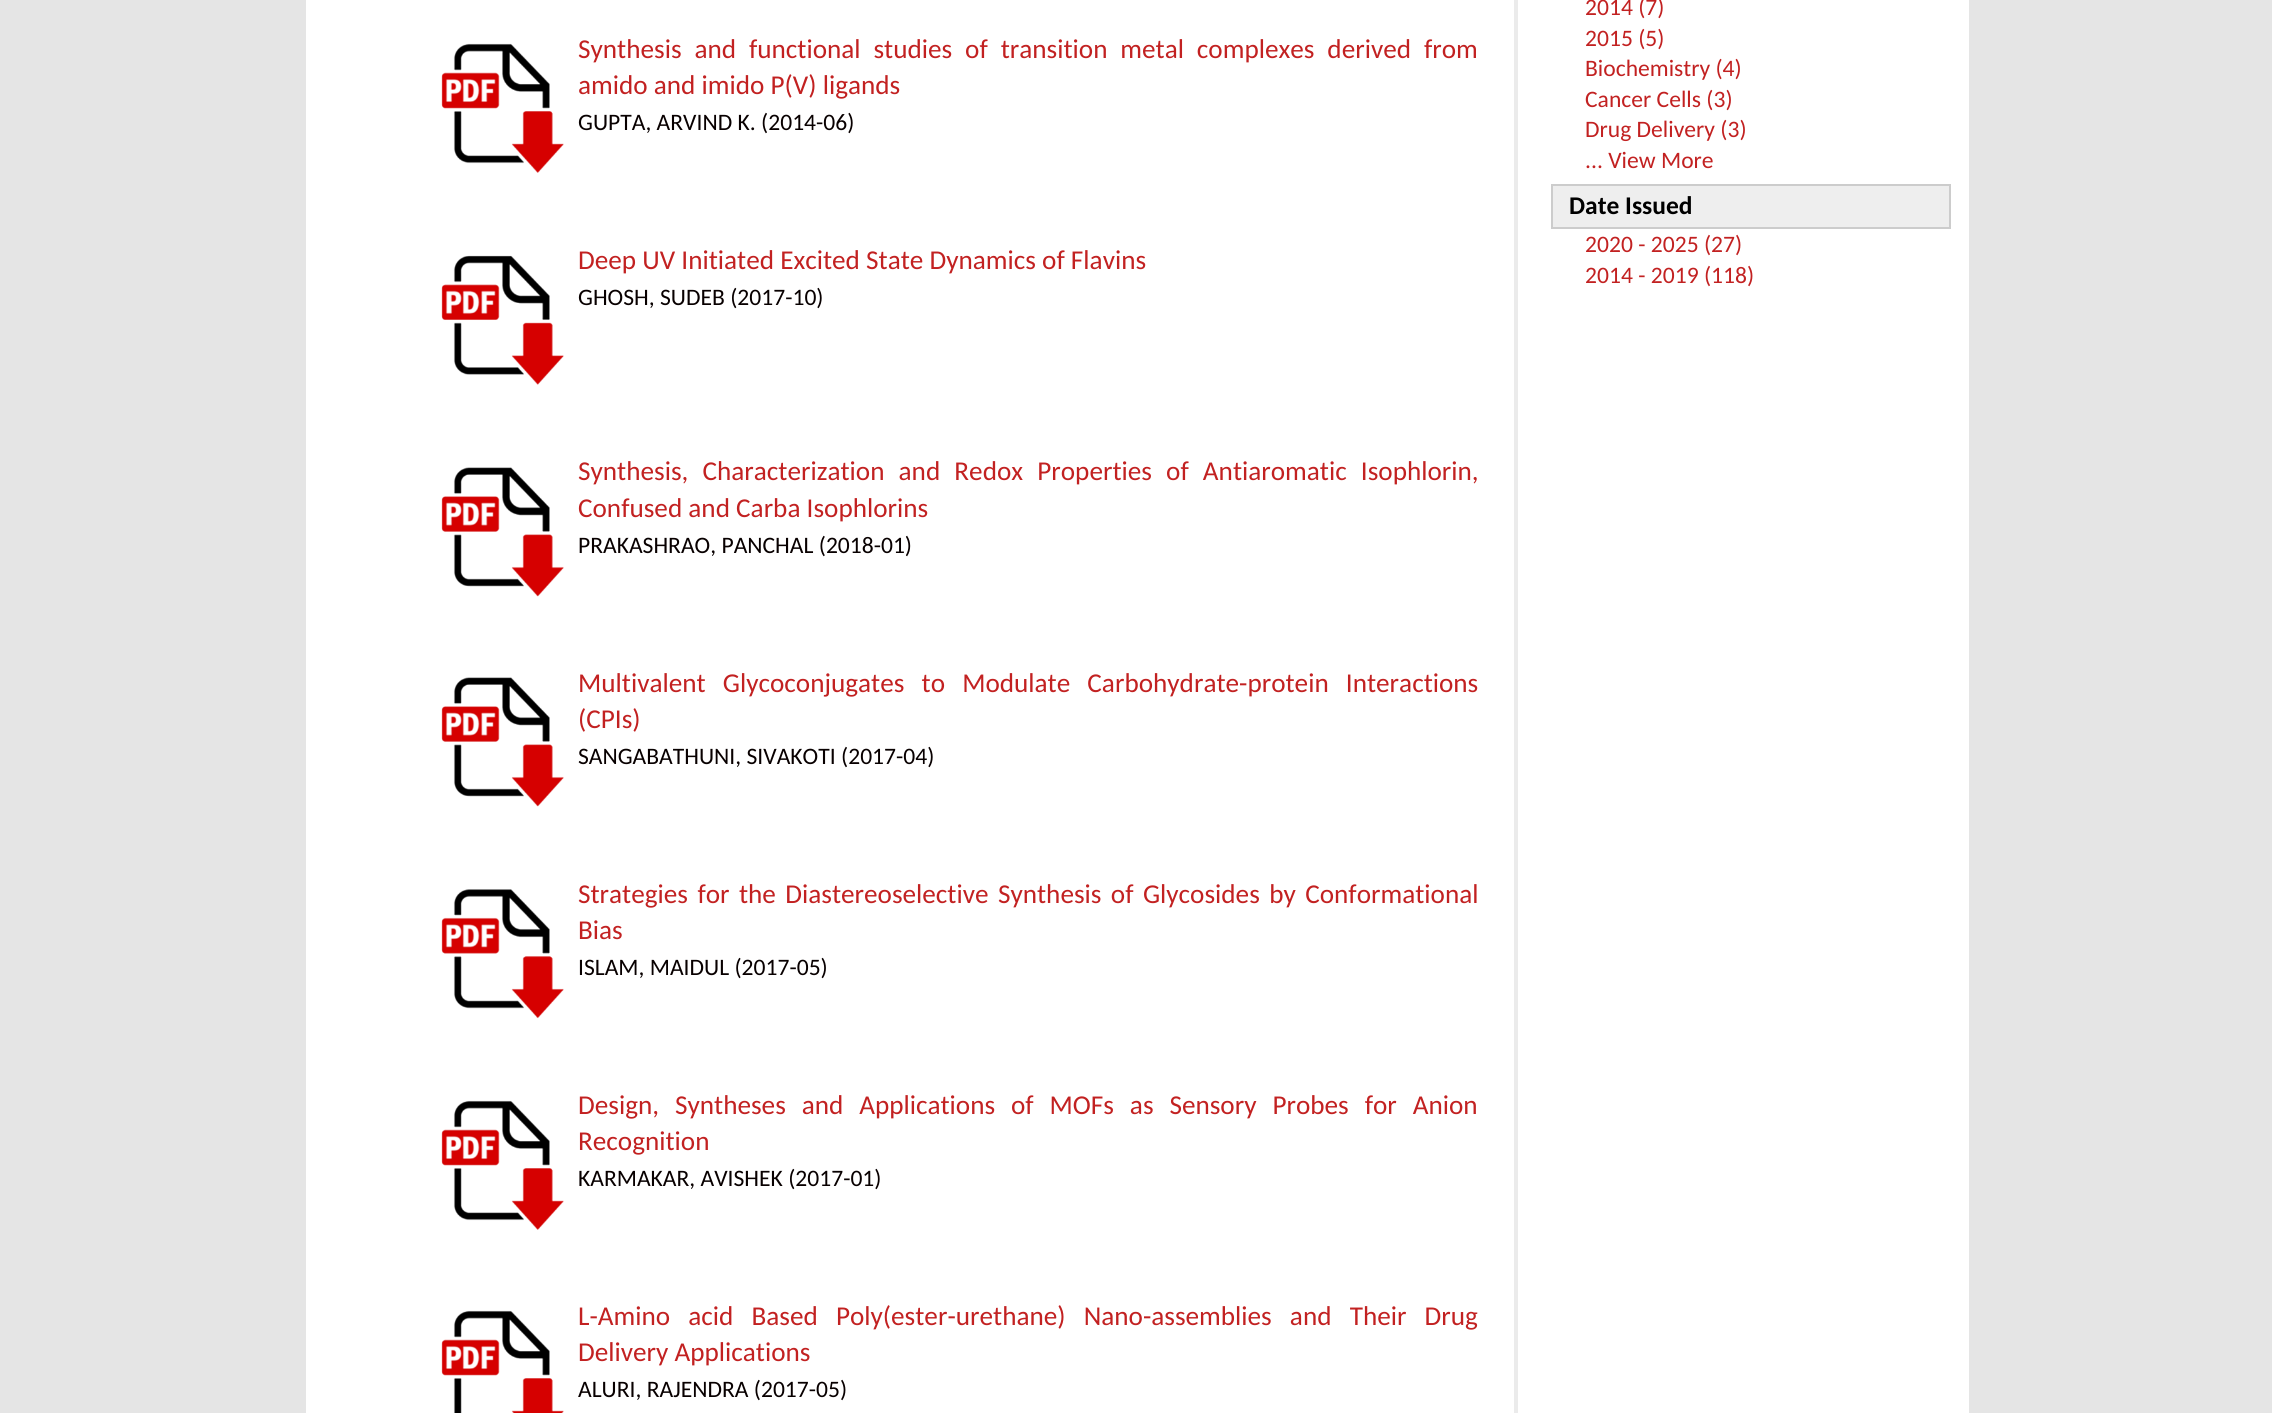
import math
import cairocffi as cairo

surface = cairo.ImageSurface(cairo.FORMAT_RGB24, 2272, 1413)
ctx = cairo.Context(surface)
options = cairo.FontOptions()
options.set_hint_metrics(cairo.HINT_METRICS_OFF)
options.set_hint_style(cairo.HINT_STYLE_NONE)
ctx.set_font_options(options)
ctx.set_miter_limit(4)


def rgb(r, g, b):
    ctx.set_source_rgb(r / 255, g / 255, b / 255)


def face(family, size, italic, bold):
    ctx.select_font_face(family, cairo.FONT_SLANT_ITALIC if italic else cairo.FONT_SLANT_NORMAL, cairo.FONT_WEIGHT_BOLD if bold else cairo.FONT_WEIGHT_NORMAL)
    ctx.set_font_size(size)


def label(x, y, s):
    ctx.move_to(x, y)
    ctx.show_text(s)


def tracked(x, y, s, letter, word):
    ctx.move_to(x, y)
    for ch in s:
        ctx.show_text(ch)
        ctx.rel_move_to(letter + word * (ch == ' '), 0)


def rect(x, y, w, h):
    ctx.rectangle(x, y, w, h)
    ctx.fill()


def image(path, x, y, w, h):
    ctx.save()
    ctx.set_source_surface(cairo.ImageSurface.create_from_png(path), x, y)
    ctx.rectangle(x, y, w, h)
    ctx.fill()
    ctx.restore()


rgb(229, 229, 229)
ctx.paint()
rgb(255, 255, 255)
rect(306, 0, 1663, 1413)
rgb(235, 235, 235)
rect(1514, 0, 4, 1413)
image('image0.png', 441, 43, 123, 130)
face('Carlito', 27.2, 0, 0)
rgb(194, 33, 33)
tracked(578, 58, 'Synthesis and functional studies of transition metal complexes derived from', 0, 6.75)
label(578, 94, 'amido and imido P(V) ligands')
face('Carlito', 23.6, 0, 0)
rgb(8, 0, 0)
label(578, 130, 'GUPTA, ARVIND K. (2014-06)')
image('image1.png', 441, 255, 123, 130)
face('Carlito', 27.2, 0, 0)
rgb(194, 33, 33)
label(578, 269, 'Deep UV Initiated Excited State Dynamics of Flavins')
face('Carlito', 23.6, 0, 0)
rgb(8, 0, 0)
label(578, 305, 'GHOSH, SUDEB (2017-10)')
image('image2.png', 441, 467, 123, 130)
face('Carlito', 27.2, 0, 0)
rgb(194, 33, 33)
tracked(578, 480, 'Synthesis, Characterization and Redox Properties of Antiaromatic Isophlorin,', 0, 8)
label(578, 517, 'Confused and Carba Isophlorins')
face('Carlito', 23.6, 0, 0)
rgb(8, 0, 0)
label(578, 553, 'PRAKASHRAO, PANCHAL (2018-01)')
image('image2.png', 441, 677, 123, 130)
face('Carlito', 27.2, 0, 0)
rgb(194, 33, 33)
tracked(578, 692, 'Multivalent Glycoconjugates to Modulate Carbohydrate-protein Interactions', 0, 11)
label(578, 728, '(CPIs)')
face('Carlito', 23.6, 0, 0)
rgb(8, 0, 0)
label(578, 764, 'SANGABATHUNI, SIVAKOTI (2017-04)')
image('image3.png', 441, 889, 123, 130)
face('Carlito', 27.2, 0, 0)
rgb(194, 33, 33)
tracked(578, 903, 'Strategies for the Diastereoselective Synthesis of Glycosides by Conformational', 0, 3.25)
label(578, 939, 'Bias')
face('Carlito', 23.6, 0, 0)
rgb(8, 0, 0)
label(578, 975, 'ISLAM, MAIDUL (2017-05)')
image('image0.png', 441, 1100, 123, 130)
face('Carlito', 27.2, 0, 0)
rgb(194, 33, 33)
tracked(578, 1114, 'Design, Syntheses and Applications of MOFs as Sensory Probes for Anion', 0, 9.75)
label(578, 1150, 'Recognition')
face('Carlito', 23.6, 0, 0)
rgb(8, 0, 0)
label(578, 1186, 'KARMAKAR, AVISHEK (2017-01)')
image('image4.png', 441, 1310, 123, 103)
face('Carlito', 27.2, 0, 0)
rgb(194, 33, 33)
tracked(578, 1325, 'L-Amino acid Based Poly(ester-urethane) Nano-assemblies and Their Drug', 0, 12)
label(578, 1361, 'Delivery Applications')
face('Carlito', 23.6, 0, 0)
rgb(8, 0, 0)
label(578, 1397, 'ALURI, RAJENDRA (2017-05)')
rgb(194, 33, 33)
label(1585, 15, '2014 (7)')
label(1585, 46, '2015 (5)')
label(1585, 76, 'Biochemistry (4)')
label(1585, 107, 'Cancer Cells (3)')
label(1585, 137, 'Drug Delivery (3)')
label(1585, 168, '... View More')
rgb(238, 238, 238)
ctx.rectangle(1552, 185, 398, 43)
ctx.fill_preserve()
rgb(204, 204, 204)
ctx.stroke()
face('Carlito', 25.5, 0, 1)
rgb(0, 0, 0)
label(1569, 214, 'Date Issued')
face('Carlito', 23.6, 0, 0)
rgb(194, 33, 33)
label(1585, 252, '2020 - 2025 (27)')
label(1585, 283, '2014 - 2019 (118)')
surface.write_to_png('render.png')
